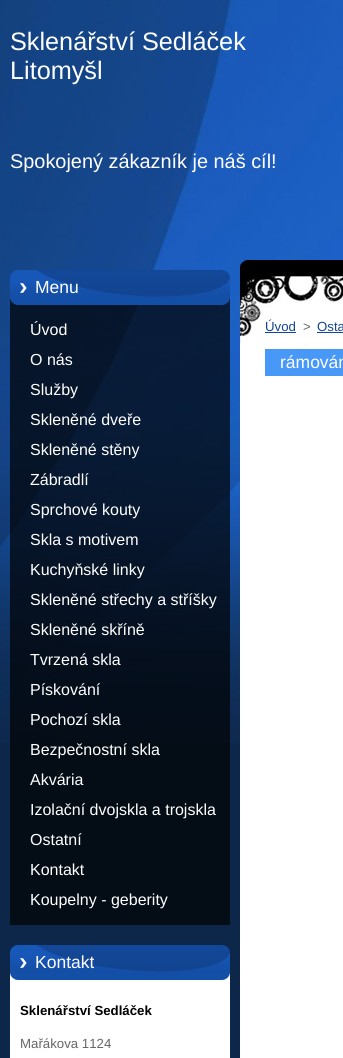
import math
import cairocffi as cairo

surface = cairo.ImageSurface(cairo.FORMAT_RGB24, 343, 1058)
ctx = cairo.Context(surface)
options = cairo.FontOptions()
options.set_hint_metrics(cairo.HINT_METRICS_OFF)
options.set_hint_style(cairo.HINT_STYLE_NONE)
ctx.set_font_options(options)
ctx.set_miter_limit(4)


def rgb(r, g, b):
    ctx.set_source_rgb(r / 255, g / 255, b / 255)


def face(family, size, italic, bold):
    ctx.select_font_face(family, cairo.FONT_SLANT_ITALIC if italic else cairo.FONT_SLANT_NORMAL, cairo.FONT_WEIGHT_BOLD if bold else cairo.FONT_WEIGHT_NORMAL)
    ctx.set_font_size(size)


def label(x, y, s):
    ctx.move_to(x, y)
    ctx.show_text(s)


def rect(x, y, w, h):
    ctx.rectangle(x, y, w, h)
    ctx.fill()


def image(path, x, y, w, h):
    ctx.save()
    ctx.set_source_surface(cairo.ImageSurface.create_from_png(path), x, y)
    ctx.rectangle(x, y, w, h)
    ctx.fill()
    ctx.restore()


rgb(13, 39, 74)
ctx.paint()
image('image0.png', 0, 0, 343, 743)
rgb(255, 255, 255)
rect(240, 265, 103, 793)
face('Liberation Sans', 25.25, 0, 0)
label(10, 50, 'Sklenářství Sedláček')
label(10, 79, 'Litomyšl')
image('image1.png', 240, 260, 103, 10)
face('Liberation Sans', 19.9, 0, 0)
label(10, 168, 'Spokojený zákazník je náš cíl!')
image('image2.png', 10, 270, 220, 35)
face('Liberation Sans', 17.5, 0, 0)
label(35, 293, 'Menu')
ctx.set_source_rgba(0, 0, 0, 0.7)
rect(10, 305, 220, 620)
face('Liberation Sans', 16, 0, 0)
rgb(255, 255, 255)
label(30, 335, 'Úvod')
label(30, 365, 'O nás')
label(30, 395, 'Služby')
label(30, 425, 'Skleněné dveře')
label(30, 455, 'Skleněné stěny')
label(30, 485, 'Zábradlí')
label(30, 515, 'Sprchové kouty')
label(30, 545, 'Skla s motivem')
label(30, 575, 'Kuchyňské linky')
label(30, 605, 'Skleněné střechy a stříšky')
label(30, 635, 'Skleněné skříně')
label(30, 665, 'Tvrzená skla')
label(30, 695, 'Pískování')
label(30, 725, 'Pochozí skla')
label(30, 755, 'Bezpečnostní skla')
label(30, 785, 'Akvária')
label(30, 815, 'Izolační dvojskla a trojskla')
label(30, 845, 'Ostatní')
label(30, 875, 'Kontakt')
label(30, 905, 'Koupelny - geberity')
rect(10, 980, 220, 78)
image('image3.png', 10, 945, 220, 35)
face('Liberation Sans', 17.5, 0, 0)
label(35, 968, 'Kontakt')
face('Liberation Sans', 13.25, 0, 1)
rgb(0, 0, 0)
label(20, 1015, 'Sklenářství Sedláček')
face('Liberation Sans', 13.25, 0, 0)
rgb(102, 102, 102)
label(20, 1048, 'Mařákova 1124')
image('image4.png', 240, 270, 103, 76)
rgb(18, 69, 147)
label(265, 331, 'Úvod')
rect(265, 332, 31, 1)
rgb(102, 102, 102)
label(303, 331, '>')
rgb(18, 69, 147)
label(317, 331, 'Osta')
rect(317, 332, 26, 1)
rgb(72, 152, 247)
rect(265, 349, 78, 27)
face('Liberation Sans', 17.5, 0, 0)
rgb(255, 255, 255)
label(280, 368, 'rámován')
surface.write_to_png('render.png')
